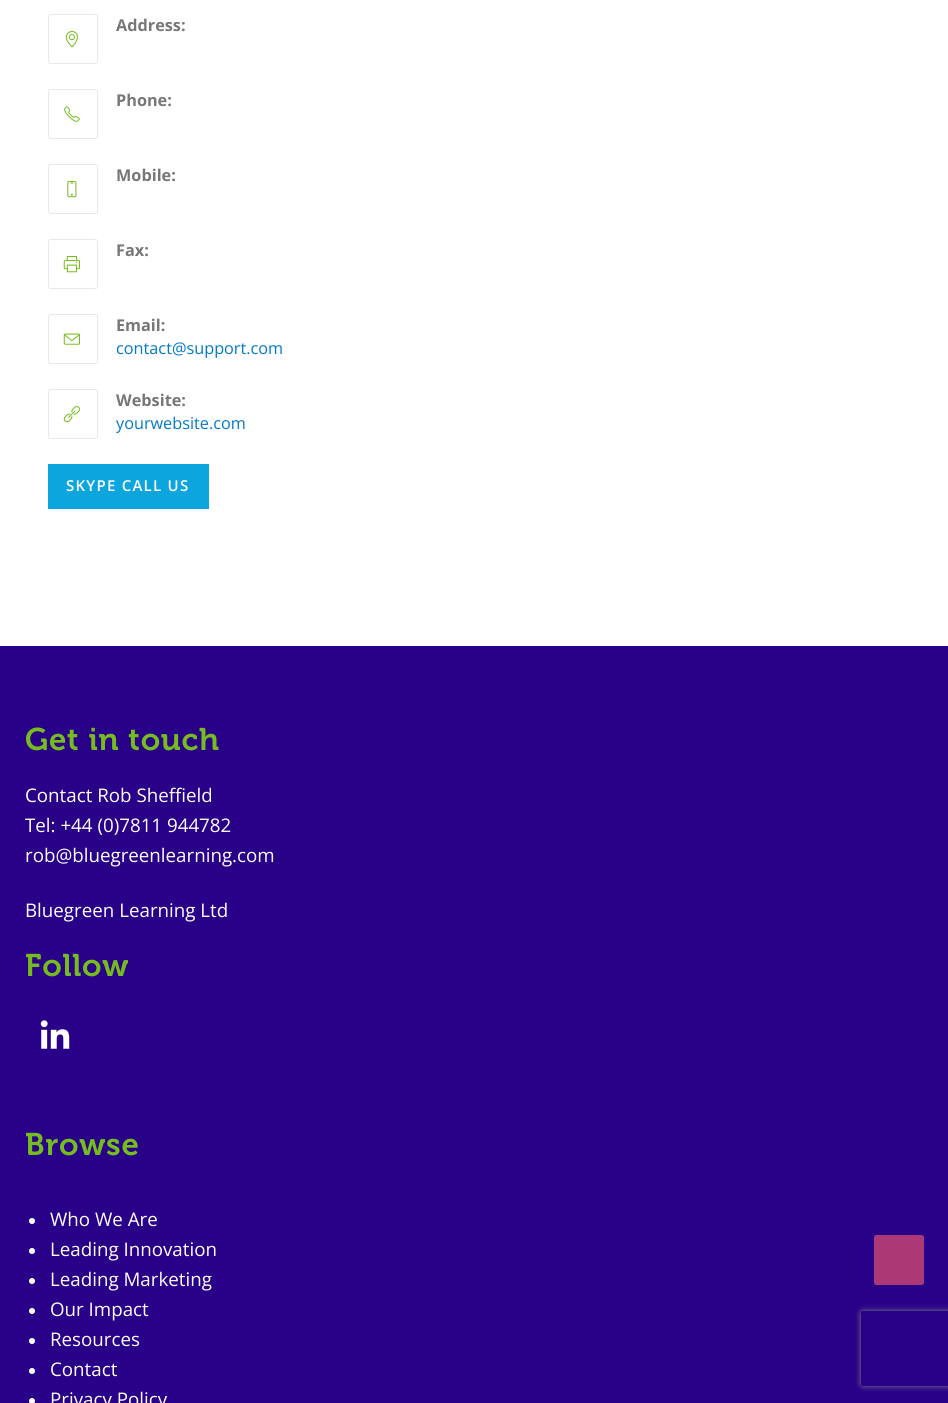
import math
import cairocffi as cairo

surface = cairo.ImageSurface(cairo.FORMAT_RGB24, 948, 1403)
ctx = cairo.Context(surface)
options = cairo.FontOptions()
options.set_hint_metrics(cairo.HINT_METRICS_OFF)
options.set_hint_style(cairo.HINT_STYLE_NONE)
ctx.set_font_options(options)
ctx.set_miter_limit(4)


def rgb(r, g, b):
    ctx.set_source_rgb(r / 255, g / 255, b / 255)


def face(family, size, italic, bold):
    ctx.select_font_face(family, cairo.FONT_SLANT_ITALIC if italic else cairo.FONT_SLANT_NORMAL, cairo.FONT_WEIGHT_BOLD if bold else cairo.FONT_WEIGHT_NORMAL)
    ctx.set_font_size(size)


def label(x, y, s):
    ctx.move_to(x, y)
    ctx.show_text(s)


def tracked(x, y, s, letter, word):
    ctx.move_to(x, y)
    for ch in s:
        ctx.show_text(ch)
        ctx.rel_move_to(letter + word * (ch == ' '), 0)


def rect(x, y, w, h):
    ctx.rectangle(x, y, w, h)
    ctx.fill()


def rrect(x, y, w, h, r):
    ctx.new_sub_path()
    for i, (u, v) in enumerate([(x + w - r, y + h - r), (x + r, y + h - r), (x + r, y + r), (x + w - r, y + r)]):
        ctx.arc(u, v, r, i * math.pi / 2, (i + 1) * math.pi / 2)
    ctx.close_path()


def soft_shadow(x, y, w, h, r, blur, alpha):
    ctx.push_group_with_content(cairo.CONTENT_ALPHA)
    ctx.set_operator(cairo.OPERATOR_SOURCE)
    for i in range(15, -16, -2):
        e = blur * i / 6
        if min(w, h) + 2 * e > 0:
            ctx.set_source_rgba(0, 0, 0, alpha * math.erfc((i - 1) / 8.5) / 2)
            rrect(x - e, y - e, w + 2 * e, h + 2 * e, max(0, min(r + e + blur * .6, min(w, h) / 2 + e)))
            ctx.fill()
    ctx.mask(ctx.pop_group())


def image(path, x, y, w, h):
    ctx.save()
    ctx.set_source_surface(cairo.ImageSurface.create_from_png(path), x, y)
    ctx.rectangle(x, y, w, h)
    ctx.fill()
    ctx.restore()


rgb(255, 255, 255)
ctx.paint()
rrect(48.5, 14.5, 49, 49, 2)
rgb(233, 233, 233)
ctx.set_line_width(1)
ctx.stroke()
image('image0.png', 65, 31, 13, 17)
face('Open Sans', 16.25, 0, 1)
rgb(119, 119, 119)
label(116, 31, 'Address:')
rrect(48.5, 89.5, 49, 49, 2)
rgb(233, 233, 233)
ctx.stroke()
image('image1.png', 64, 106, 16, 16)
rgb(119, 119, 119)
label(116, 106, 'Phone:')
rrect(48.5, 164.5, 49, 49, 2)
rgb(233, 233, 233)
ctx.stroke()
image('image2.png', 67, 181, 10, 17)
rgb(119, 119, 119)
label(116, 181, 'Mobile:')
rrect(48.5, 239.5, 49, 49, 2)
rgb(233, 233, 233)
ctx.stroke()
image('image3.png', 63, 256, 17, 17)
rgb(119, 119, 119)
label(116, 256, 'Fax:')
rrect(48.5, 314.5, 49, 49, 2)
rgb(233, 233, 233)
ctx.stroke()
image('image4.png', 63, 333, 17, 12)
rgb(119, 119, 119)
label(116, 331, 'Email:')
face('Open Sans', 16.25, 0, 0)
rgb(0, 122, 201)
label(116, 354, 'contact@support.com')
rrect(48.5, 389.5, 49, 49, 2)
rgb(233, 233, 233)
ctx.stroke()
image('image5.png', 63, 406, 17, 17)
face('Open Sans', 16.25, 0, 1)
rgb(119, 119, 119)
label(116, 406, 'Website:')
face('Open Sans', 16.25, 0, 0)
rgb(0, 122, 201)
label(116, 429, 'yourwebsite.com')
rgb(12, 165, 222)
rect(48, 464, 161, 45)
face('Open Sans SemiBold', 15, 0, 0)
rgb(255, 255, 255)
tracked(66, 491, 'SKYPE CALL US', 1.25, 0)
rgb(41, 0, 136)
rect(0, 646, 948, 757)
face('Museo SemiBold', 31.25, 0, 0)
rgb(119, 188, 31)
tracked(25, 750, 'Get in touch', 0.75, 0)
face('Open Sans', 18.75, 0, 0)
rgb(255, 255, 255)
label(25, 802, 'Contact Rob Sheffield')
label(25, 832, 'Tel: +44 (0)7811 944782')
label(25, 862, 'rob@bluegreenlearning.com')
label(25, 917, 'Bluegreen Learning Ltd')
face('Museo SemiBold', 31.25, 0, 0)
rgb(119, 188, 31)
tracked(25, 976, 'Follow', 0.75, 0)
image('image6.png', 40, 1020, 30, 29)
tracked(25, 1155, 'Browse', 0.75, 0)
rgb(255, 255, 255)
ctx.new_path()
ctx.arc(32, 1221, 3, 0, 2 * math.pi)
ctx.fill()
face('Open Sans', 18.75, 0, 0)
label(50, 1226, 'Who We Are')
ctx.new_path()
ctx.arc(32, 1251, 3, 0, 2 * math.pi)
ctx.fill()
label(50, 1256, 'Leading Innovation')
ctx.new_path()
ctx.arc(32, 1281, 3, 0, 2 * math.pi)
ctx.fill()
label(50, 1286, 'Leading Marketing')
ctx.new_path()
ctx.arc(32, 1311, 3, 0, 2 * math.pi)
ctx.fill()
label(50, 1316, 'Our Impact')
ctx.new_path()
ctx.arc(32, 1341, 3, 0, 2 * math.pi)
ctx.fill()
label(50, 1346, 'Resources')
ctx.new_path()
ctx.arc(32, 1371, 3, 0, 2 * math.pi)
ctx.fill()
label(50, 1376, 'Contact')
ctx.new_path()
ctx.arc(32, 1401, 3, 0, 2 * math.pi)
ctx.fill()
label(50, 1406, 'Privacy Policy')
rgb(171, 57, 118)
rrect(874, 1235, 50, 50, 2.5)
ctx.fill()
ctx.save()
ctx.set_fill_rule(cairo.FILL_RULE_EVEN_ODD)
ctx.new_path()
ctx.move_to(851, 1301)
ctx.line_to(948, 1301)
ctx.line_to(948, 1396)
ctx.line_to(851, 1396)
ctx.close_path()
ctx.move_to(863.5, 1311)
ctx.line_to(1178.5, 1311)
ctx.curve_to(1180, 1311, 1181, 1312, 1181, 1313.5)
ctx.line_to(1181, 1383.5)
ctx.curve_to(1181, 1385, 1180, 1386, 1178.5, 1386)
ctx.line_to(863.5, 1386)
ctx.curve_to(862, 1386, 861, 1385, 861, 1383.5)
ctx.line_to(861, 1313.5)
ctx.curve_to(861, 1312, 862, 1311, 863.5, 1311)
ctx.close_path()
ctx.clip()
rgb(128, 128, 128)
soft_shadow(861, 1311, 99, 75, 2.5, 3, 1)
ctx.restore()
surface.write_to_png('render.png')
